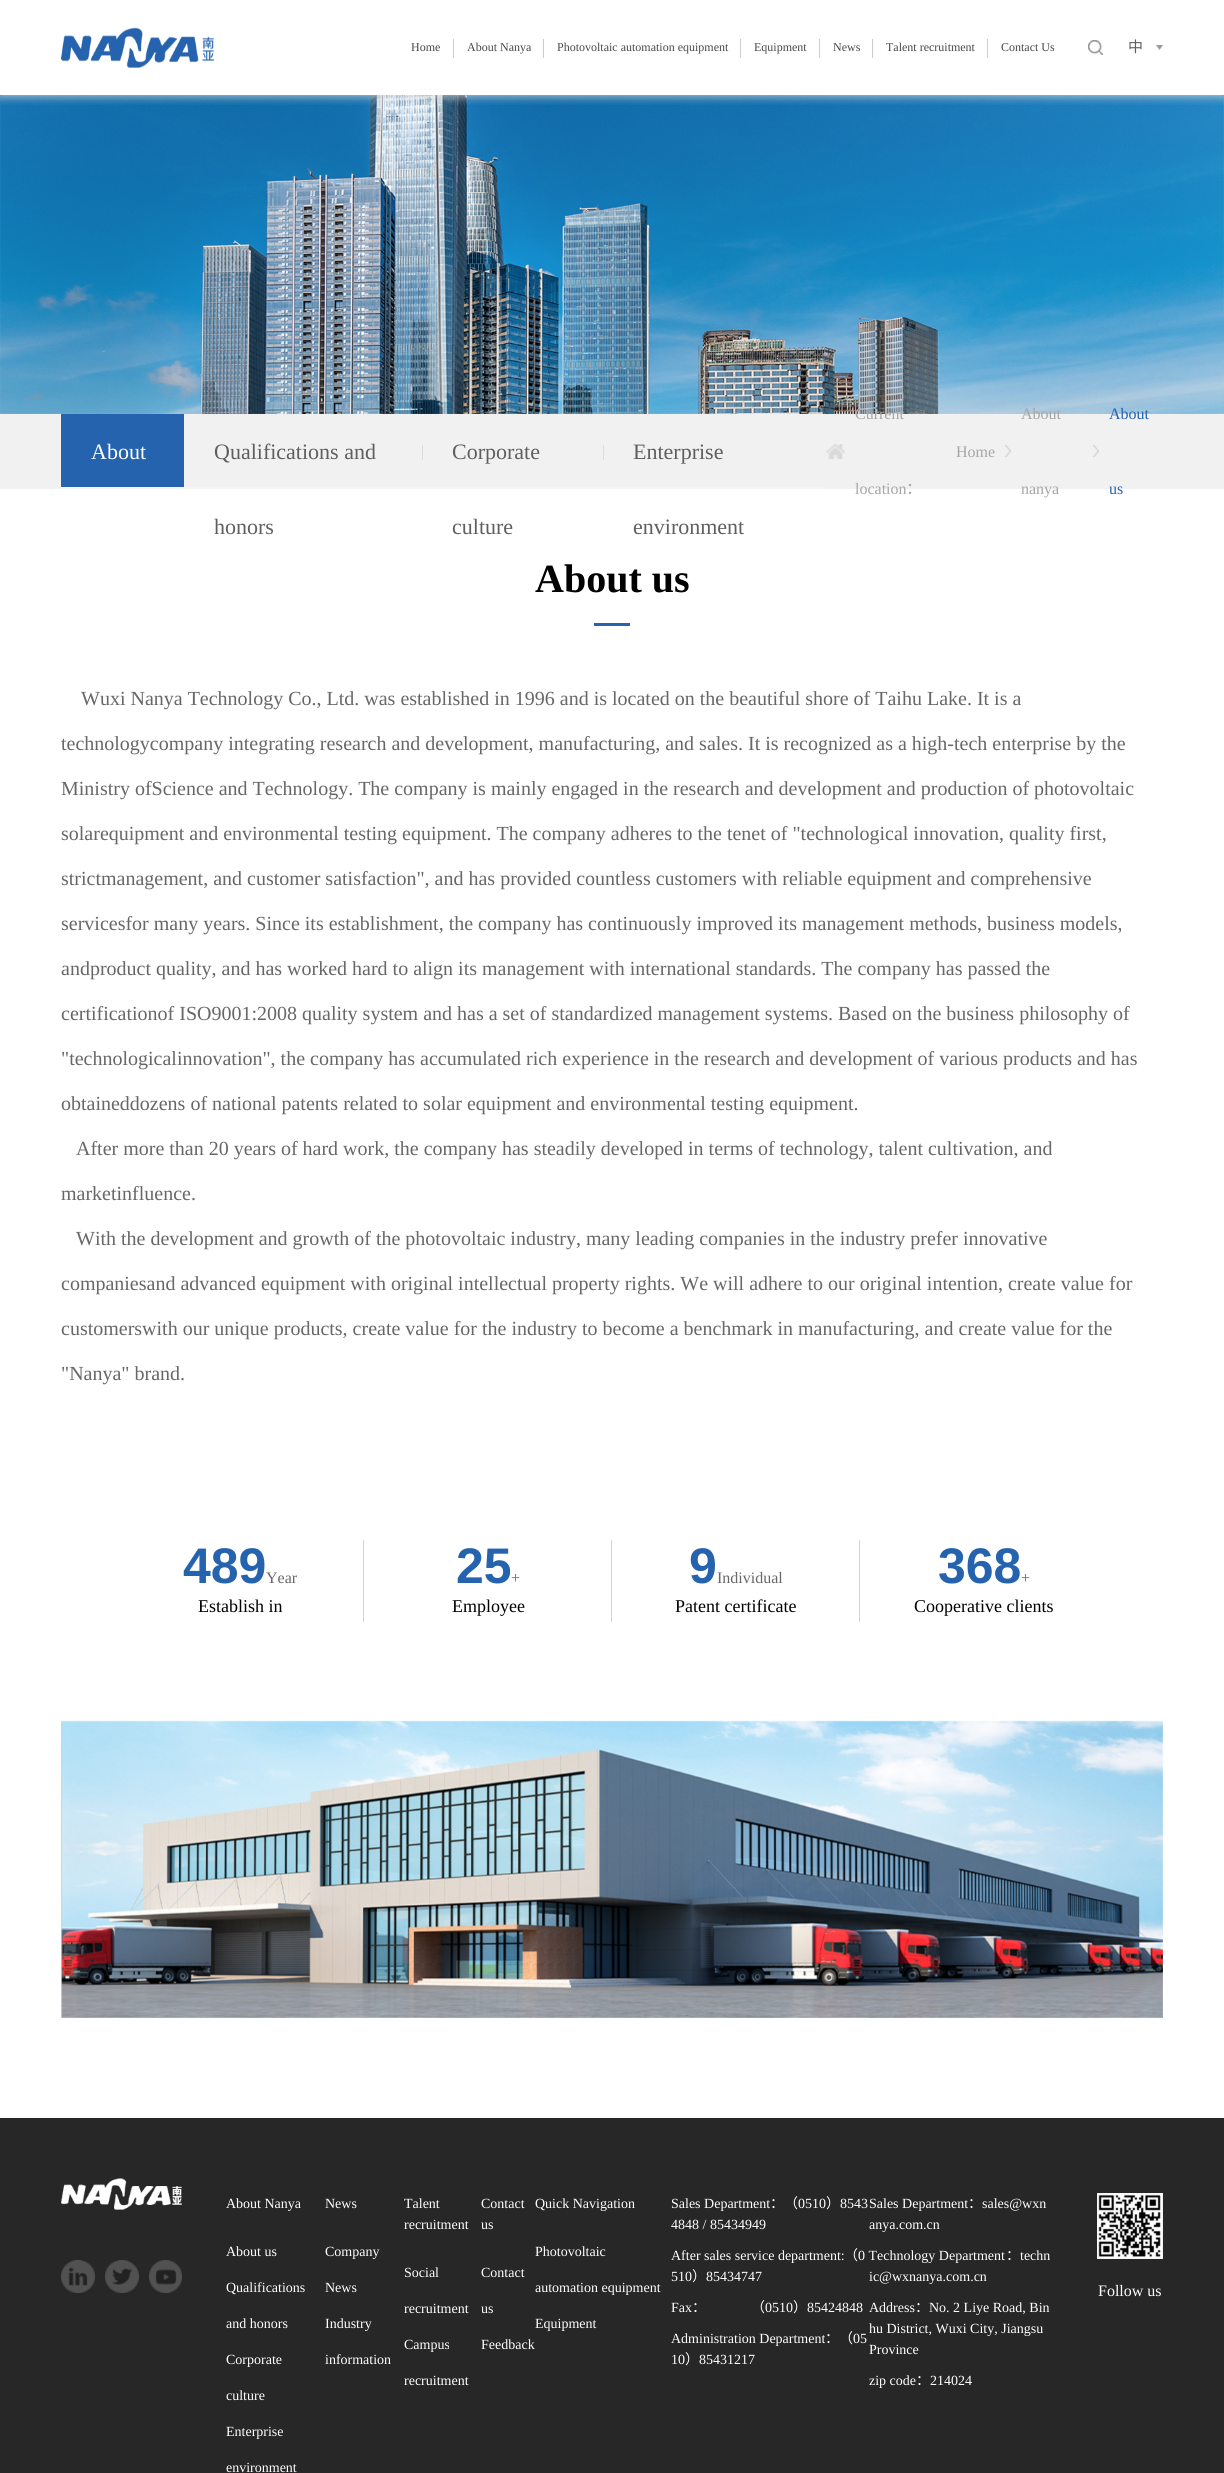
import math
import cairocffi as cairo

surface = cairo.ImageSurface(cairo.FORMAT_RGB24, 1224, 2473)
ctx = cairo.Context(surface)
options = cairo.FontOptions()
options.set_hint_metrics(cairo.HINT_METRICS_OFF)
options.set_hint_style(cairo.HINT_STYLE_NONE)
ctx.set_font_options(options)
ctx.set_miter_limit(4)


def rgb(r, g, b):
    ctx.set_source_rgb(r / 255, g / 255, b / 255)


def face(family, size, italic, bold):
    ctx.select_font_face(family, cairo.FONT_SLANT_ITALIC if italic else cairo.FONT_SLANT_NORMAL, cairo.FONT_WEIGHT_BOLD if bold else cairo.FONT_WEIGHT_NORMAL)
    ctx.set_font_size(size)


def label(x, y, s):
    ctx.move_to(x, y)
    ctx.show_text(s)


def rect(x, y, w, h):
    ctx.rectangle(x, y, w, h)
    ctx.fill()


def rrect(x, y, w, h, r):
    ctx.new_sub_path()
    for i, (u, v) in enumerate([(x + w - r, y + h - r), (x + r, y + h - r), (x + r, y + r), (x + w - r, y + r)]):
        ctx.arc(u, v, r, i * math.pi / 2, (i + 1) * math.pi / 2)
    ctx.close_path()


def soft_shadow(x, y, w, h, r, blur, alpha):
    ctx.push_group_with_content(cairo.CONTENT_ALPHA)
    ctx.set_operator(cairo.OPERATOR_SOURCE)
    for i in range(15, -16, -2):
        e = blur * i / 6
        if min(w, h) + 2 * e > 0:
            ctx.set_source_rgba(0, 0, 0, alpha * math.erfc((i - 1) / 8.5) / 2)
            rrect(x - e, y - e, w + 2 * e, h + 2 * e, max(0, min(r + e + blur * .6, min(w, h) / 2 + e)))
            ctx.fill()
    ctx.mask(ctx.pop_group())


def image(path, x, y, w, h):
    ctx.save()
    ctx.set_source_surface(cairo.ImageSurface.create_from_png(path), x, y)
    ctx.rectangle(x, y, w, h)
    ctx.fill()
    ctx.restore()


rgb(255, 255, 255)
ctx.paint()
image('image3.png', 0, 95, 1224, 319)
ctx.save()
ctx.rectangle(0, 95, 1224, 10)
ctx.clip()
rgb(219, 219, 219)
soft_shadow(0, 3, 1224, 95, 0, 4, 0.65)
ctx.restore()
image('image0.png', 61, 27, 153, 41)
face('Liberation Serif', 12, 0, 0)
rgb(72, 72, 72)
label(411, 51, 'Home')
rgb(204, 204, 204)
rect(453, 39, 1, 19)
rgb(72, 72, 72)
label(467, 51, 'About Nanya')
rgb(204, 204, 204)
rect(543, 39, 1, 19)
rgb(72, 72, 72)
label(557, 51, 'Photovoltaic automation equipment')
rgb(204, 204, 204)
rect(740, 39, 1, 19)
rgb(72, 72, 72)
label(754, 51, 'Equipment')
rgb(204, 204, 204)
rect(819, 39, 1, 19)
rgb(72, 72, 72)
label(833, 51, 'News')
rgb(204, 204, 204)
rect(872, 39, 1, 19)
rgb(72, 72, 72)
label(886, 51, 'Talent recruitment')
rgb(204, 204, 204)
rect(987, 39, 1, 19)
rgb(72, 72, 72)
label(1001, 51, 'Contact Us')
image('image1.png', 1088, 40, 15, 15)
image('image2.png', 1156, 45, 7, 5)
face('Noto Sans CJK SC', 15, 0, 0)
rgb(95, 95, 95)
label(1128, 52, '中')
rgb(241, 241, 241)
rect(0, 414, 1224, 75)
rgb(37, 99, 174)
rect(61, 414, 123, 73)
rgb(245, 245, 245)
rect(61, 487, 765, 2)
face('Liberation Serif', 22, 0, 0)
rgb(255, 255, 255)
label(91, 459, 'About')
rgb(95, 95, 95)
label(214, 459, 'Qualifications and')
rgb(221, 221, 221)
rect(422, 445, 1, 15)
rgb(95, 95, 95)
label(214, 534, 'honors')
label(452, 459, 'Corporate')
rgb(221, 221, 221)
rect(603, 445, 1, 15)
rgb(95, 95, 95)
label(452, 534, 'culture')
label(633, 459, 'Enterprise')
label(633, 534, 'environment')
image('image4.png', 826, 444, 19, 15)
face('Liberation Serif', 16, 0, 0)
rgb(167, 166, 166)
label(855, 419, 'Current')
label(855, 494, 'location')
face('Noto Sans CJK SC', 16, 0, 0)
label(906, 494, '：')
face('Liberation Serif', 16, 0, 0)
label(956, 457, 'Home')
image('image5.png', 1005, 445, 6, 12)
label(1021, 419, 'About')
label(1021, 494, 'nanya')
image('image6.png', 1093, 445, 6, 12)
rgb(37, 99, 174)
label(1109, 419, 'About')
label(1109, 494, 'us')
face('Liberation Serif', 40, 0, 1)
rgb(0, 0, 0)
label(535, 592, 'About us')
rgb(37, 99, 174)
rect(594, 623, 36, 3)
face('Liberation Serif', 20, 0, 0)
rgb(103, 103, 103)
label(81, 705, 'Wuxi Nanya Technology Co., Ltd. was established in 1996 and is located on the beautiful shore of Taihu Lake. It is a')
label(61, 750, 'technologycompany integrating research and development, manufacturing, and sales. It is recognized as a high-tech enterprise by the')
label(61, 795, 'Ministry ofScience and Technology. The company is mainly engaged in the research and development and production of photovoltaic')
label(61, 840, 'solarequipment and environmental testing equipment. The company adheres to the tenet of "technological innovation, quality first,')
label(61, 885, 'strictmanagement, and customer satisfaction", and has provided countless customers with reliable equipment and comprehensive')
label(61, 930, 'servicesfor many years. Since its establishment, the company has continuously improved its management methods, business models,')
label(61, 975, 'andproduct quality, and has worked hard to align its management with international standards. The company has passed the')
label(61, 1020, 'certificationof ISO9001:2008 quality system and has a set of standardized management systems. Based on the business philosophy of')
label(61, 1065, '"technologicalinnovation", the company has accumulated rich experience in the research and development of various products and has')
label(61, 1110, 'obtaineddozens of national patents related to solar equipment and environmental testing equipment.')
label(76, 1155, 'After more than 20 years of hard work, the company has steadily developed in terms of technology, talent cultivation, and')
label(61, 1200, 'marketinfluence.')
label(76, 1245, 'With the development and growth of the photovoltaic industry, many leading companies in the industry prefer innovative')
label(61, 1290, 'companiesand advanced equipment with original intellectual property rights. We will adhere to our original intention, create value for')
label(61, 1335, 'customerswith our unique products, create value for the industry to become a benchmark in manufacturing, and create value for the')
label(61, 1380, '"Nanya" brand.')
face('Liberation Sans', 50, 0, 1)
rgb(37, 99, 174)
label(183, 1583, '489')
face('Liberation Serif', 16, 0, 0)
rgb(103, 103, 103)
label(266, 1583, 'Year')
rgb(211, 211, 211)
rect(363, 1540, 1, 82)
face('Liberation Serif', 18, 0, 0)
rgb(0, 0, 0)
label(198, 1612, 'Establish in')
face('Liberation Sans', 50, 0, 1)
rgb(37, 99, 174)
label(456, 1583, '25')
face('Liberation Serif', 16, 0, 0)
rgb(103, 103, 103)
label(511, 1583, '+')
rgb(211, 211, 211)
rect(611, 1540, 1, 82)
face('Liberation Serif', 18, 0, 0)
rgb(0, 0, 0)
label(452, 1612, 'Employee')
face('Liberation Sans', 50, 0, 1)
rgb(37, 99, 174)
label(689, 1583, '9')
face('Liberation Serif', 16, 0, 0)
rgb(103, 103, 103)
label(717, 1583, 'Individual')
rgb(211, 211, 211)
rect(859, 1540, 1, 82)
face('Liberation Serif', 18, 0, 0)
rgb(0, 0, 0)
label(675, 1612, 'Patent certificate')
face('Liberation Sans', 50, 0, 1)
rgb(37, 99, 174)
label(938, 1583, '368')
face('Liberation Serif', 16, 0, 0)
rgb(103, 103, 103)
label(1021, 1583, '+')
face('Liberation Serif', 18, 0, 0)
rgb(0, 0, 0)
label(914, 1612, 'Cooperative clients')
image('image7.png', 61, 1720, 1102, 298)
rgb(39, 39, 39)
rect(0, 2118, 1224, 355)
image('image8.png', 61, 2178, 121, 32)
image('image9.png', 61, 2260, 34, 33)
image('image10.png', 105, 2260, 34, 33)
image('image11.png', 149, 2260, 33, 33)
face('Liberation Serif', 14, 0, 0)
rgb(255, 255, 255)
label(226, 2208, 'About Nanya')
label(226, 2256, 'About us')
label(226, 2292, 'Qualifications')
label(226, 2328, 'and honors')
label(226, 2364, 'Corporate')
label(226, 2400, 'culture')
label(226, 2436, 'Enterprise')
label(226, 2472, 'environment')
label(325, 2208, 'News')
label(325, 2256, 'Company')
label(325, 2292, 'News')
label(325, 2328, 'Industry')
label(325, 2364, 'information')
label(404, 2208, 'Talent')
label(404, 2229, 'recruitment')
label(404, 2277, 'Social')
label(404, 2313, 'recruitment')
label(404, 2349, 'Campus')
label(404, 2385, 'recruitment')
label(481, 2208, 'Contact')
label(481, 2229, 'us')
label(481, 2277, 'Contact')
label(481, 2313, 'us')
label(481, 2349, 'Feedback')
label(535, 2208, 'Quick Navigation')
label(535, 2256, 'Photovoltaic')
label(535, 2292, 'automation equipment')
label(535, 2328, 'Equipment')
label(671, 2208, 'Sales Department')
face('Noto Sans CJK SC', 14, 0, 0)
label(770, 2208, '：（')
face('Liberation Serif', 14, 0, 0)
label(798, 2208, '0510')
face('Noto Sans CJK SC', 14, 0, 0)
label(826, 2208, '）')
face('Liberation Serif', 14, 0, 0)
label(840, 2208, '8543')
label(671, 2229, '4848 / 85434949')
label(671, 2260, 'After sales service department:')
face('Noto Sans CJK SC', 14, 0, 0)
label(844, 2260, '（')
face('Liberation Serif', 14, 0, 0)
label(858, 2260, '0 Technology Department')
label(671, 2281, '510')
face('Noto Sans CJK SC', 14, 0, 0)
label(692, 2281, '）')
face('Liberation Serif', 14, 0, 0)
label(706, 2281, '85434747')
label(671, 2312, 'Fax')
face('Noto Sans CJK SC', 14, 0, 0)
label(692, 2312, '：')
label(751, 2312, '（')
face('Liberation Serif', 14, 0, 0)
label(765, 2312, '0510')
face('Noto Sans CJK SC', 14, 0, 0)
label(793, 2312, '）')
face('Liberation Serif', 14, 0, 0)
label(807, 2312, '85424848')
label(671, 2343, 'Administration Department')
face('Noto Sans CJK SC', 14, 0, 0)
label(825, 2343, '：（')
face('Liberation Serif', 14, 0, 0)
label(853, 2343, '05')
label(671, 2364, '10')
face('Noto Sans CJK SC', 14, 0, 0)
label(685, 2364, '）')
face('Liberation Serif', 14, 0, 0)
label(699, 2364, '85431217')
label(869, 2208, 'Sales Department')
face('Noto Sans CJK SC', 14, 0, 0)
label(968, 2208, '：')
face('Liberation Serif', 14, 0, 0)
label(982, 2208, 'sales@wxn')
label(869, 2229, 'anya.com.cn')
face('Noto Sans CJK SC', 14, 0, 0)
label(1006, 2260, '：')
face('Liberation Serif', 14, 0, 0)
label(1020, 2260, 'techn')
label(869, 2281, 'ic@wxnanya.com.cn')
label(869, 2312, 'Address')
face('Noto Sans CJK SC', 14, 0, 0)
label(915, 2312, '：')
face('Liberation Serif', 14, 0, 0)
label(929, 2312, 'No. 2 Liye Road, Bin')
label(869, 2333, 'hu District, Wuxi City, Jiangsu')
label(869, 2354, 'Province')
label(869, 2385, 'zip code')
face('Noto Sans CJK SC', 14, 0, 0)
label(916, 2385, '：')
face('Liberation Serif', 14, 0, 0)
label(930, 2385, '214024')
image('image12.png', 1097, 2193, 66, 66)
face('Liberation Serif', 16, 0, 0)
label(1098, 2296, 'Follow us')
surface.write_to_png('render.png')
